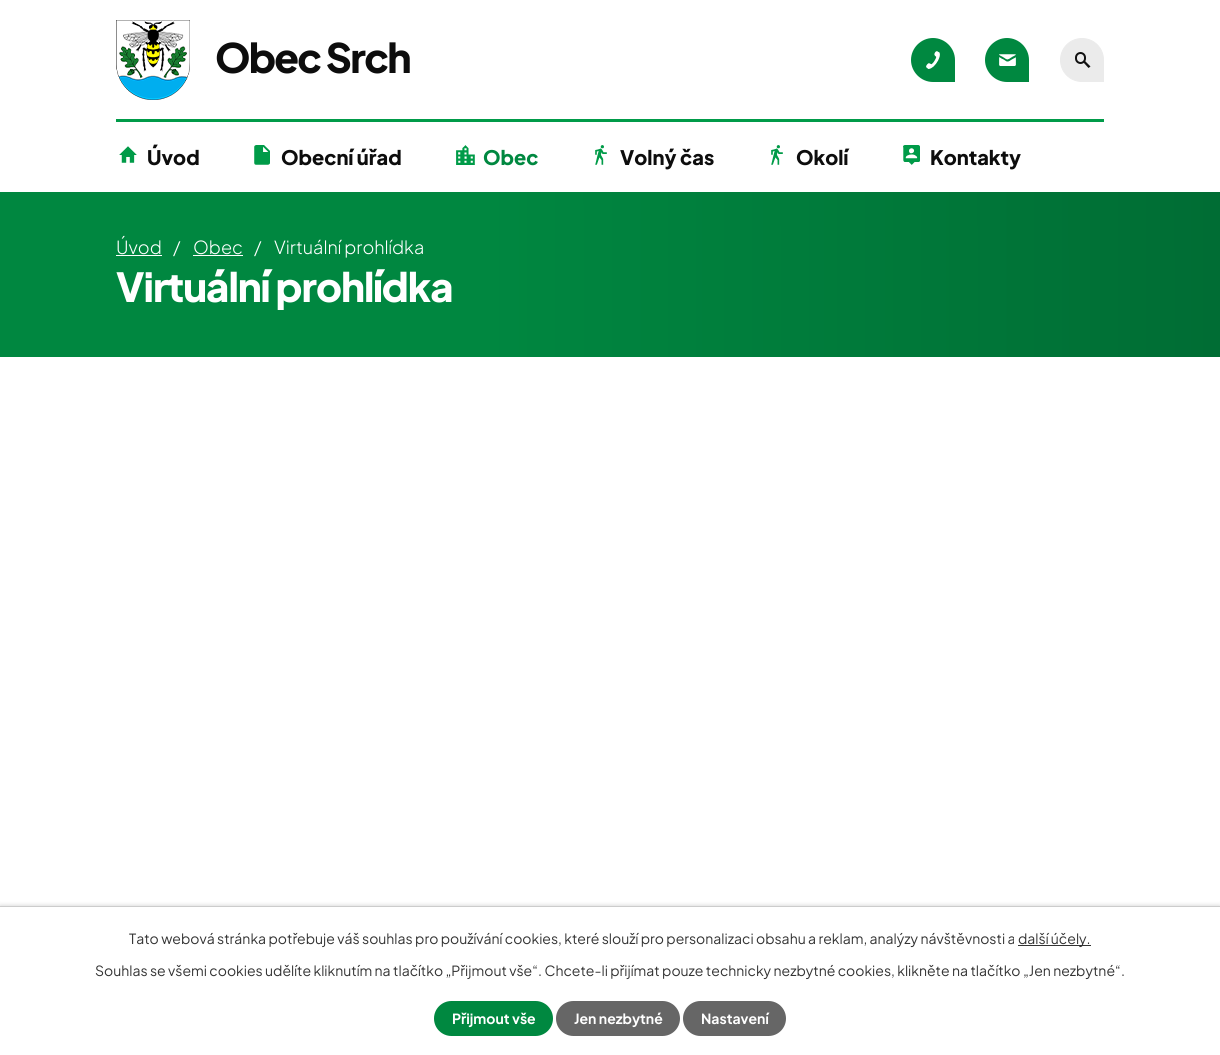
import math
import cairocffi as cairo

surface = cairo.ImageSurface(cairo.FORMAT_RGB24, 1220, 1055)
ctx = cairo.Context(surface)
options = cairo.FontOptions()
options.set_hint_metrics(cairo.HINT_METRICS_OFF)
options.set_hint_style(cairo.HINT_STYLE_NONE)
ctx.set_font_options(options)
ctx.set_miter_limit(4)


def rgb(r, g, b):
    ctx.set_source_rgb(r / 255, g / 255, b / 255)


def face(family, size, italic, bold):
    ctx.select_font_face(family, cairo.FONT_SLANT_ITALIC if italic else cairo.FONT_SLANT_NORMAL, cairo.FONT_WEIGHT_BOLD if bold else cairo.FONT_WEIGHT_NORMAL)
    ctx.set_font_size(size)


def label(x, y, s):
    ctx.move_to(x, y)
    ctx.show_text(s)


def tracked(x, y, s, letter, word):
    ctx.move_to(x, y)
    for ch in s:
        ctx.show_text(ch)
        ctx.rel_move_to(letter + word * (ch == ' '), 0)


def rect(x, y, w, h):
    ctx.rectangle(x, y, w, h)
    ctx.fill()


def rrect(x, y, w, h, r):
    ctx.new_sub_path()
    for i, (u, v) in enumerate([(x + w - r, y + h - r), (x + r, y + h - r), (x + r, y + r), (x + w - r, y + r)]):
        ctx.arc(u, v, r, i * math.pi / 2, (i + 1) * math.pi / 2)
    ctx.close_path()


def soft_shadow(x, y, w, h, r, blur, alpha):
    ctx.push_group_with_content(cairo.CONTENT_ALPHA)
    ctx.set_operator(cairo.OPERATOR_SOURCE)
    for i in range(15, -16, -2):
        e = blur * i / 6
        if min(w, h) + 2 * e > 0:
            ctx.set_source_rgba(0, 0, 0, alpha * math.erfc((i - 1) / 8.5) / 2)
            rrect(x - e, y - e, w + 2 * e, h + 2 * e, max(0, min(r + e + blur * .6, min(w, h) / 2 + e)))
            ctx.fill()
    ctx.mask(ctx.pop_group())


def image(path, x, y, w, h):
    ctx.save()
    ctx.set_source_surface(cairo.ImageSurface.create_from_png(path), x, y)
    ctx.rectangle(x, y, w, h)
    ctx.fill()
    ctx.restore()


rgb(255, 255, 255)
ctx.paint()
image('image0.png', 116, 20, 74, 80)
face('Plus Jakarta Sans ExtraBold', 40.5, 0, 0)
rgb(13, 13, 13)
tracked(215, 73, 'Obec Srch', -1.75, 0)
rgb(0, 136, 64)
ctx.new_path()
ctx.move_to(933, 38)
ctx.curve_to(945, 38, 955, 48, 955, 60)
ctx.line_to(955, 82)
ctx.line_to(933, 82)
ctx.curve_to(921, 82, 911, 72, 911, 60)
ctx.curve_to(911, 48, 921, 38, 933, 38)
ctx.close_path()
ctx.fill()
image('image1.png', 926, 51, 14, 18)
ctx.new_path()
ctx.move_to(1007, 38)
ctx.curve_to(1019, 38, 1029, 48, 1029, 60)
ctx.line_to(1029, 82)
ctx.line_to(1007, 82)
ctx.curve_to(995, 82, 985, 72, 985, 60)
ctx.curve_to(985, 48, 995, 38, 1007, 38)
ctx.close_path()
ctx.fill()
image('image2.png', 999, 54, 17, 12)
rgb(235, 235, 235)
ctx.new_path()
ctx.move_to(1082, 38.5)
ctx.curve_to(1094, 38.5, 1103.5, 48, 1103.5, 60)
ctx.line_to(1103.5, 81.5)
ctx.line_to(1082, 81.5)
ctx.curve_to(1070, 81.5, 1060.5, 72, 1060.5, 60)
ctx.curve_to(1060.5, 48, 1070, 38.5, 1082, 38.5)
ctx.close_path()
ctx.fill_preserve()
ctx.set_line_width(1)
ctx.stroke()
rrect(1076, 53, 9, 10, 4.5)
rgb(17, 17, 17)
ctx.set_line_width(2)
ctx.stroke()
ctx.new_path()
ctx.move_to(1084.5, 60.5)
ctx.line_to(1090.5, 66.5)
ctx.line_to(1088.5, 68)
ctx.line_to(1083, 62)
ctx.close_path()
ctx.fill()
rgb(0, 155, 73)
rect(116, 119, 988, 3)
image('image3.png', 119, 146, 18, 17)
face('Plus Jakarta Sans ExtraBold', 20, 0, 0)
rgb(13, 13, 13)
label(147, 165, 'Úvod')
image('image4.png', 254, 145, 16, 20)
label(281, 165, 'Obecní úřad')
image('image5.png', 456, 145, 19, 20)
rgb(0, 136, 64)
label(483, 165, 'Obec')
image('image6.png', 595, 145, 12, 20)
rgb(13, 13, 13)
label(620, 165, 'Volný čas')
image('image6.png', 771, 145, 12, 20)
label(796, 165, 'Okolí')
image('image7.png', 903, 145, 17, 20)
label(930, 165, 'Kontakty')
gradient = cairo.LinearGradient(0, 275, 1220, 274)
gradient.add_color_stop_rgba(0, 0, 0.529, 0.251, 1)
gradient.add_color_stop_rgba(0.4, 0, 0.529, 0.251, 1)
gradient.add_color_stop_rgba(1, 0, 0.427, 0.204, 1)
ctx.set_source(gradient)
rect(0, 192, 1220, 165)
face('Plus Jakarta Sans Light', 18, 0, 0)
rgb(255, 255, 255)
label(116, 254, 'Úvod')
rect(116, 255, 46, 1)
label(173, 254, '/')
label(193, 254, 'Obec')
rect(193, 255, 50, 1)
label(254, 254, '/')
label(274, 254, 'Virtuální prohlídka')
face('Plus Jakarta Sans ExtraBold', 40, 0, 0)
tracked(116, 302, 'Virtuální prohlídka', -1, 0)
rgb(0, 0, 0)
soft_shadow(0, 906, 1220, 149, 0, 2.5, 0.2)
rgb(255, 255, 255)
rect(0, 907, 1220, 148)
rgb(204, 204, 204)
rect(0, 906, 1220, 1)
face('Plus Jakarta Sans', 14, 0, 0)
rgb(51, 51, 51)
label(129, 944, 'Tato webová stránka potřebuje váš souhlas pro používání cookies, které slouží pro personalizaci obsahu a reklam, analýzy návštěvnosti a')
rect(1018, 945, 73, 1)
label(1018, 944, 'další účely.')
label(95, 976, 'Souhlas se všemi cookies udělíte kliknutím na tlačítko „Přijmout vše“. Chcete-li přijímat pouze technicky nezbytné cookies, klikněte na tlačítko „Jen nezbytné“.')
rgb(0, 136, 64)
rrect(434, 1001, 119, 35, 17.5)
ctx.fill()
face('Plus Jakarta Sans', 14, 0, 1)
rgb(255, 255, 255)
label(452, 1024, 'Přijmout vše')
rgb(102, 102, 102)
rrect(556, 1001, 124, 35, 17.5)
ctx.fill()
rgb(255, 255, 255)
label(574, 1024, 'Jen nezbytné')
rgb(102, 102, 102)
rrect(683, 1001, 103, 35, 17.5)
ctx.fill()
rgb(255, 255, 255)
label(701, 1024, 'Nastavení')
surface.write_to_png('render.png')
